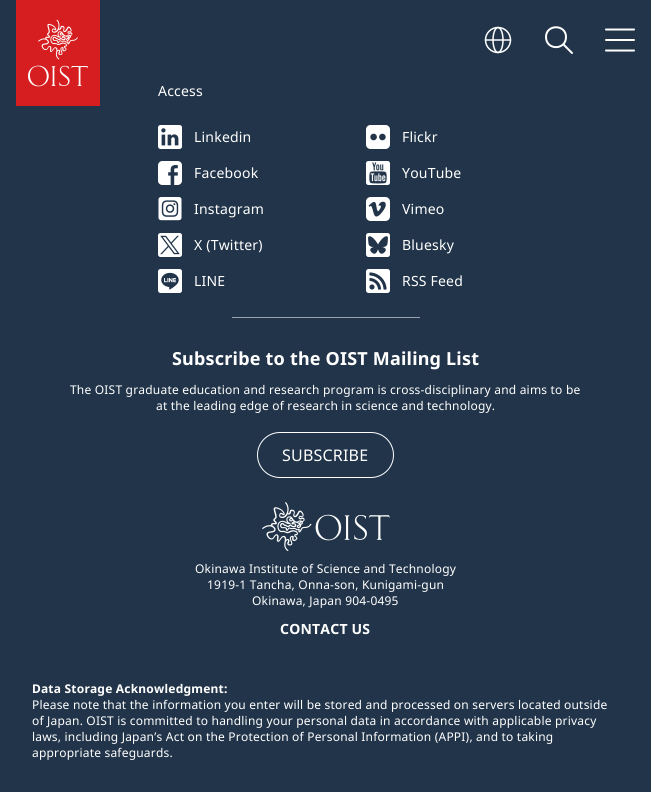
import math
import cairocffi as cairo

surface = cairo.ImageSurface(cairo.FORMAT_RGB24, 651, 792)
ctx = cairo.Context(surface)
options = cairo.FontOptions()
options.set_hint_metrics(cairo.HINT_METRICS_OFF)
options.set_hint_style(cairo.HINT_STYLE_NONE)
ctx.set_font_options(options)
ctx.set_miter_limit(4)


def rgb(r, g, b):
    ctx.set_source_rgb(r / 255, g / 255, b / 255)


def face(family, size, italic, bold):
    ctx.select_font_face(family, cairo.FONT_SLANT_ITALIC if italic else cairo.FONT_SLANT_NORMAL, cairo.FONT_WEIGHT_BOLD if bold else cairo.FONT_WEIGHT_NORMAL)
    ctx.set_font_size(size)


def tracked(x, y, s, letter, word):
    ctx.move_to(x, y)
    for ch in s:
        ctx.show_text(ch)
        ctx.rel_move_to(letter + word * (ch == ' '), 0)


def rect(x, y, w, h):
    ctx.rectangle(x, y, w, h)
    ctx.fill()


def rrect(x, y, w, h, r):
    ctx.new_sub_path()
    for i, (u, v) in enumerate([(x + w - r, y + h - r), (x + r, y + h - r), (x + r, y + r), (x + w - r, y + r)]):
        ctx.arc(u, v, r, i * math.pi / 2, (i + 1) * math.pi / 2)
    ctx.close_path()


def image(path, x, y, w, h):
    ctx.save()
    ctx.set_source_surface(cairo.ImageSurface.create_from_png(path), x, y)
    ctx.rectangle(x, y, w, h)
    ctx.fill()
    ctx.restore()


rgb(33, 52, 73)
ctx.paint()
image('image0.png', 16, 0, 84, 106)
image('image1.png', 484, 26, 28, 28)
ctx.new_path()
ctx.move_to(572, 53)
ctx.line_to(563.5, 44.5)
ctx.close_path()
ctx.move_to(566, 37)
ctx.curve_to(566, 50.5, 546, 50.5, 546, 37)
ctx.curve_to(546, 24, 566, 24, 566, 37)
ctx.close_path()
rgb(255, 255, 255)
ctx.set_line_cap(cairo.LINE_CAP_ROUND)
ctx.set_line_join(cairo.LINE_JOIN_ROUND)
ctx.stroke()
ctx.new_path()
ctx.move_to(606, 50.5)
ctx.line_to(634, 50.5)
ctx.move_to(606, 29.5)
ctx.line_to(634, 29.5)
ctx.close_path()
ctx.move_to(606, 40)
ctx.line_to(634, 40)
ctx.close_path()
ctx.stroke()
face('Noto Sans', 14, 0, 0)
tracked(158, 96, 'Access', 0.2, 0)
image('image2.png', 158, 125, 24, 24)
tracked(194, 142, 'Linkedin', 0.2, 0)
image('image3.png', 366, 125, 24, 24)
tracked(402, 142, 'Flickr', 0.2, 0)
image('image4.png', 158, 161, 24, 24)
tracked(194, 178, 'Facebook', 0.2, 0)
image('image5.png', 366, 161, 24, 24)
tracked(402, 178, 'YouTube', 0.2, 0)
image('image6.png', 158, 197, 24, 24)
tracked(194, 214, 'Instagram', 0.2, 0)
image('image7.png', 366, 197, 24, 24)
tracked(402, 214, 'Vimeo', 0.2, 0)
image('image8.png', 158, 233, 24, 24)
tracked(194, 250, 'X (Twitter)', 0.2, 0)
image('image9.png', 366, 233, 24, 24)
tracked(402, 250, 'Bluesky', 0.2, 0)
image('image10.png', 158, 269, 24, 24)
tracked(194, 286, 'LINE', 0.2, 0)
image('image11.png', 366, 269, 24, 24)
tracked(402, 286, 'RSS Feed', 0.2, 0)
rgb(156, 163, 175)
rect(232, 317, 188, 1)
face('Noto Sans', 18, 0, 1)
rgb(255, 255, 255)
tracked(172, 365, 'Subscribe to the OIST Mailing List', 0.2, 0)
face('Noto Sans', 12, 0, 0)
tracked(70, 394, 'The OIST graduate education and research program is cross-disciplinary and aims to be', 0.2, 0)
tracked(156, 410, 'at the leading edge of research in science and technology.', 0.2, 0)
rrect(257.5, 432.5, 136, 45, 22.5)
ctx.set_line_width(1)
ctx.set_line_cap(cairo.LINE_CAP_BUTT)
ctx.set_line_join(cairo.LINE_JOIN_MITER)
ctx.stroke()
face('Noto Sans', 16, 0, 0)
tracked(282, 461, 'SUBSCRIBE', 0.2, 0)
image('image12.png', 262, 502, 128, 49)
face('Noto Sans', 12, 0, 0)
tracked(195, 573, 'Okinawa Institute of Science and Technology', 0.2, 0)
tracked(207, 589, '1919-1 Tancha, Onna-son, Kunigami-gun', 0.2, 0)
tracked(252, 605, 'Okinawa, Japan 904-0495', 0.2, 0)
face('Noto Sans', 14, 0, 1)
tracked(280, 634, 'CONTACT US', 0.2, 0)
face('Noto Sans', 12, 0, 1)
tracked(32, 693, 'Data Storage Acknowledgment:', 0.2, 0)
face('Noto Sans', 12, 0, 0)
tracked(32, 709, 'Please note that the information you enter will be stored and processed on servers located outside', 0.2, 0)
tracked(32, 725, 'of Japan. OIST is committed to handling your personal data in accordance with applicable privacy', 0.2, 0)
tracked(32, 741, 'laws, including Japan’s Act on the Protection of Personal Information (APPI), and to taking', 0.2, 0)
tracked(32, 757, 'appropriate safeguards.', 0.2, 0)
surface.write_to_png('render.png')
